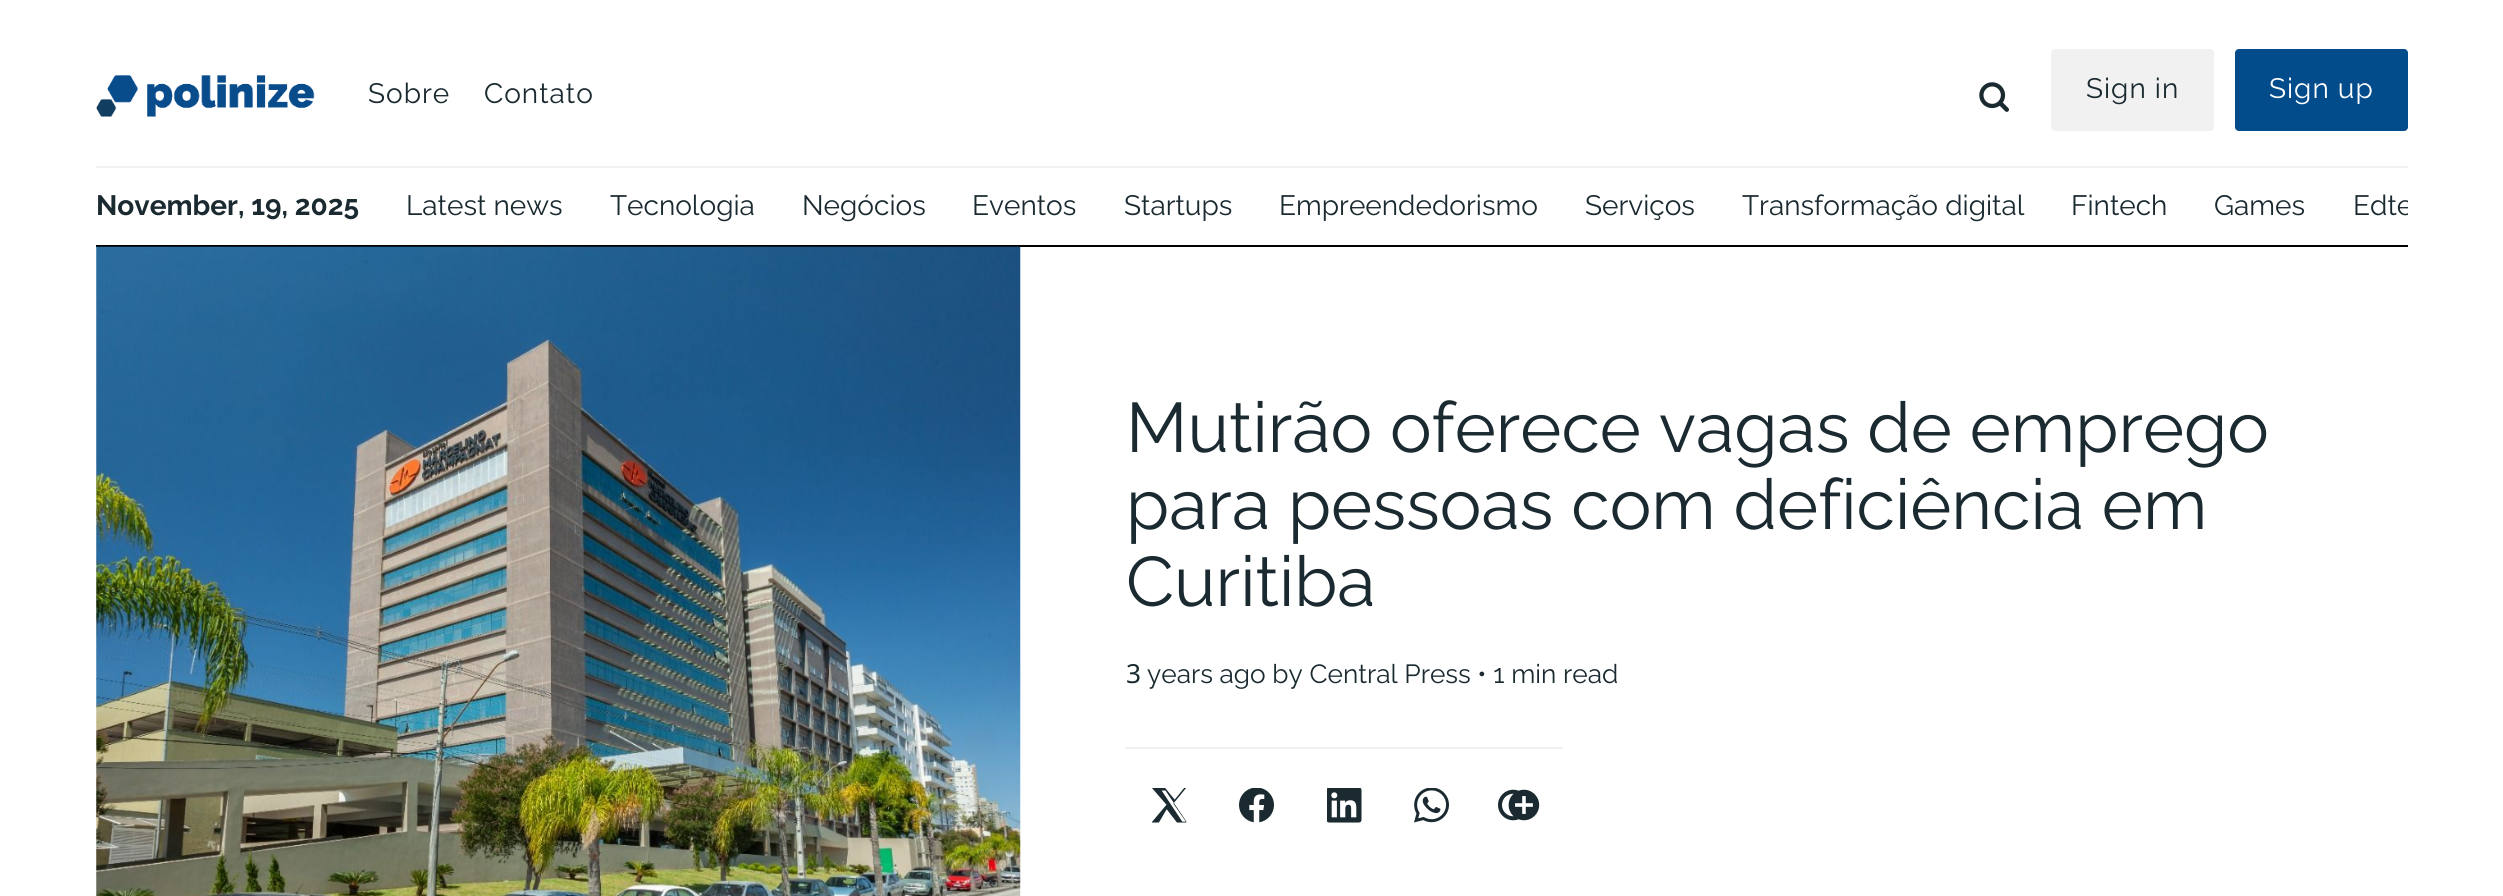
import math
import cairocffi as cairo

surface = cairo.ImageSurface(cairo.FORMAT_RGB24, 2503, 896)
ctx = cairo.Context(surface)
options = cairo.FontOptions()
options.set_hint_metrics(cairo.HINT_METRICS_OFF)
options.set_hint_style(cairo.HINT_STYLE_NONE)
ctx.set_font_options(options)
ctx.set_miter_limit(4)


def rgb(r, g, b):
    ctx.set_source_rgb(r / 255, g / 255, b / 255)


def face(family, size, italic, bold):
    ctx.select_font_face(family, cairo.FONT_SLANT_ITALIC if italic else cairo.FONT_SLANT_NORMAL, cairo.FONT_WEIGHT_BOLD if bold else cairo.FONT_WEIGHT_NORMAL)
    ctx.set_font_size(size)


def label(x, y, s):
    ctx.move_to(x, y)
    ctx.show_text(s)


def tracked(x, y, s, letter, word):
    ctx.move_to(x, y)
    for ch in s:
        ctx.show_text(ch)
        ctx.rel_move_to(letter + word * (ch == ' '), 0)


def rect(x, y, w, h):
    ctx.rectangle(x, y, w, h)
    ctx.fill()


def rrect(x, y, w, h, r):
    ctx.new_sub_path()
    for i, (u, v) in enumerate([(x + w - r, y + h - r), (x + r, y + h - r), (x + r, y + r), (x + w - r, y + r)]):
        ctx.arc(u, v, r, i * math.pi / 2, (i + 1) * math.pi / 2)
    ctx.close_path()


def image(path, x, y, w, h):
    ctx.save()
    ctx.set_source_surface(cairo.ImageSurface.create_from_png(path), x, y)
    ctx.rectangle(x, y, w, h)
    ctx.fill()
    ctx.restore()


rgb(255, 255, 255)
ctx.paint()
image('image0.png', 96, 75, 219, 42)
face('Raleway', 28, 0, 0)
rgb(26, 42, 48)
tracked(368, 103, 'Sobre', 1, 0)
tracked(484, 103, 'Contato', 1, 0)
image('image1.png', 1979, 82, 30, 30)
rgb(241, 241, 242)
rrect(2051, 49, 163, 82, 4)
ctx.fill()
rgb(26, 42, 48)
tracked(2086, 98, 'Sign in', 1, 0)
rgb(3, 76, 140)
rrect(2235, 49, 173, 82, 4)
ctx.fill()
rgb(255, 255, 255)
tracked(2269, 98, 'Sign up', 1, 0)
rgb(241, 241, 242)
rect(96, 166, 2312, 2)
rgb(0, 0, 0)
rect(96, 245, 2312, 2)
face('Raleway', 28, 0, 1)
rgb(26, 42, 48)
label(96, 215, 'November, 19, 2025')
face('Raleway', 28, 0, 0)
label(406, 215, 'Latest news')
label(610, 215, 'Tecnologia')
label(802, 215, 'Negócios')
label(972, 215, 'Eventos')
label(1124, 215, 'Startups')
label(1279, 215, 'Empreendedorismo')
label(1585, 215, 'Serviços')
label(1742, 215, 'Transformação digital')
label(2071, 215, 'Fintech')
label(2214, 215, 'Games')
ctx.save()
ctx.rectangle(96, 168, 2312, 77)
ctx.clip()
label(2353, 215, 'Edte')
ctx.restore()
image('image2.png', 96, 246, 925, 650)
face('Raleway', 70, 0, 0)
label(1126, 452, 'Mutirão oferece vagas de emprego')
label(1126, 529, 'para pessoas com deficiência em')
label(1126, 606, 'Curitiba')
face('Noto Sans', 26.25, 0, 0)
label(1126, 683, '3')
face('Raleway', 26.25, 0, 0)
label(1147, 683, 'years ago by Central Press • 1 min read')
rgb(241, 241, 242)
rect(1125, 747, 438, 2)
image('image3.png', 1152, 788, 35, 35)
image('image4.png', 1239, 788, 35, 35)
image('image5.png', 1327, 788, 35, 35)
image('image6.png', 1414, 788, 35, 35)
image('image7.png', 1498, 789, 42, 32)
surface.write_to_png('render.png')
